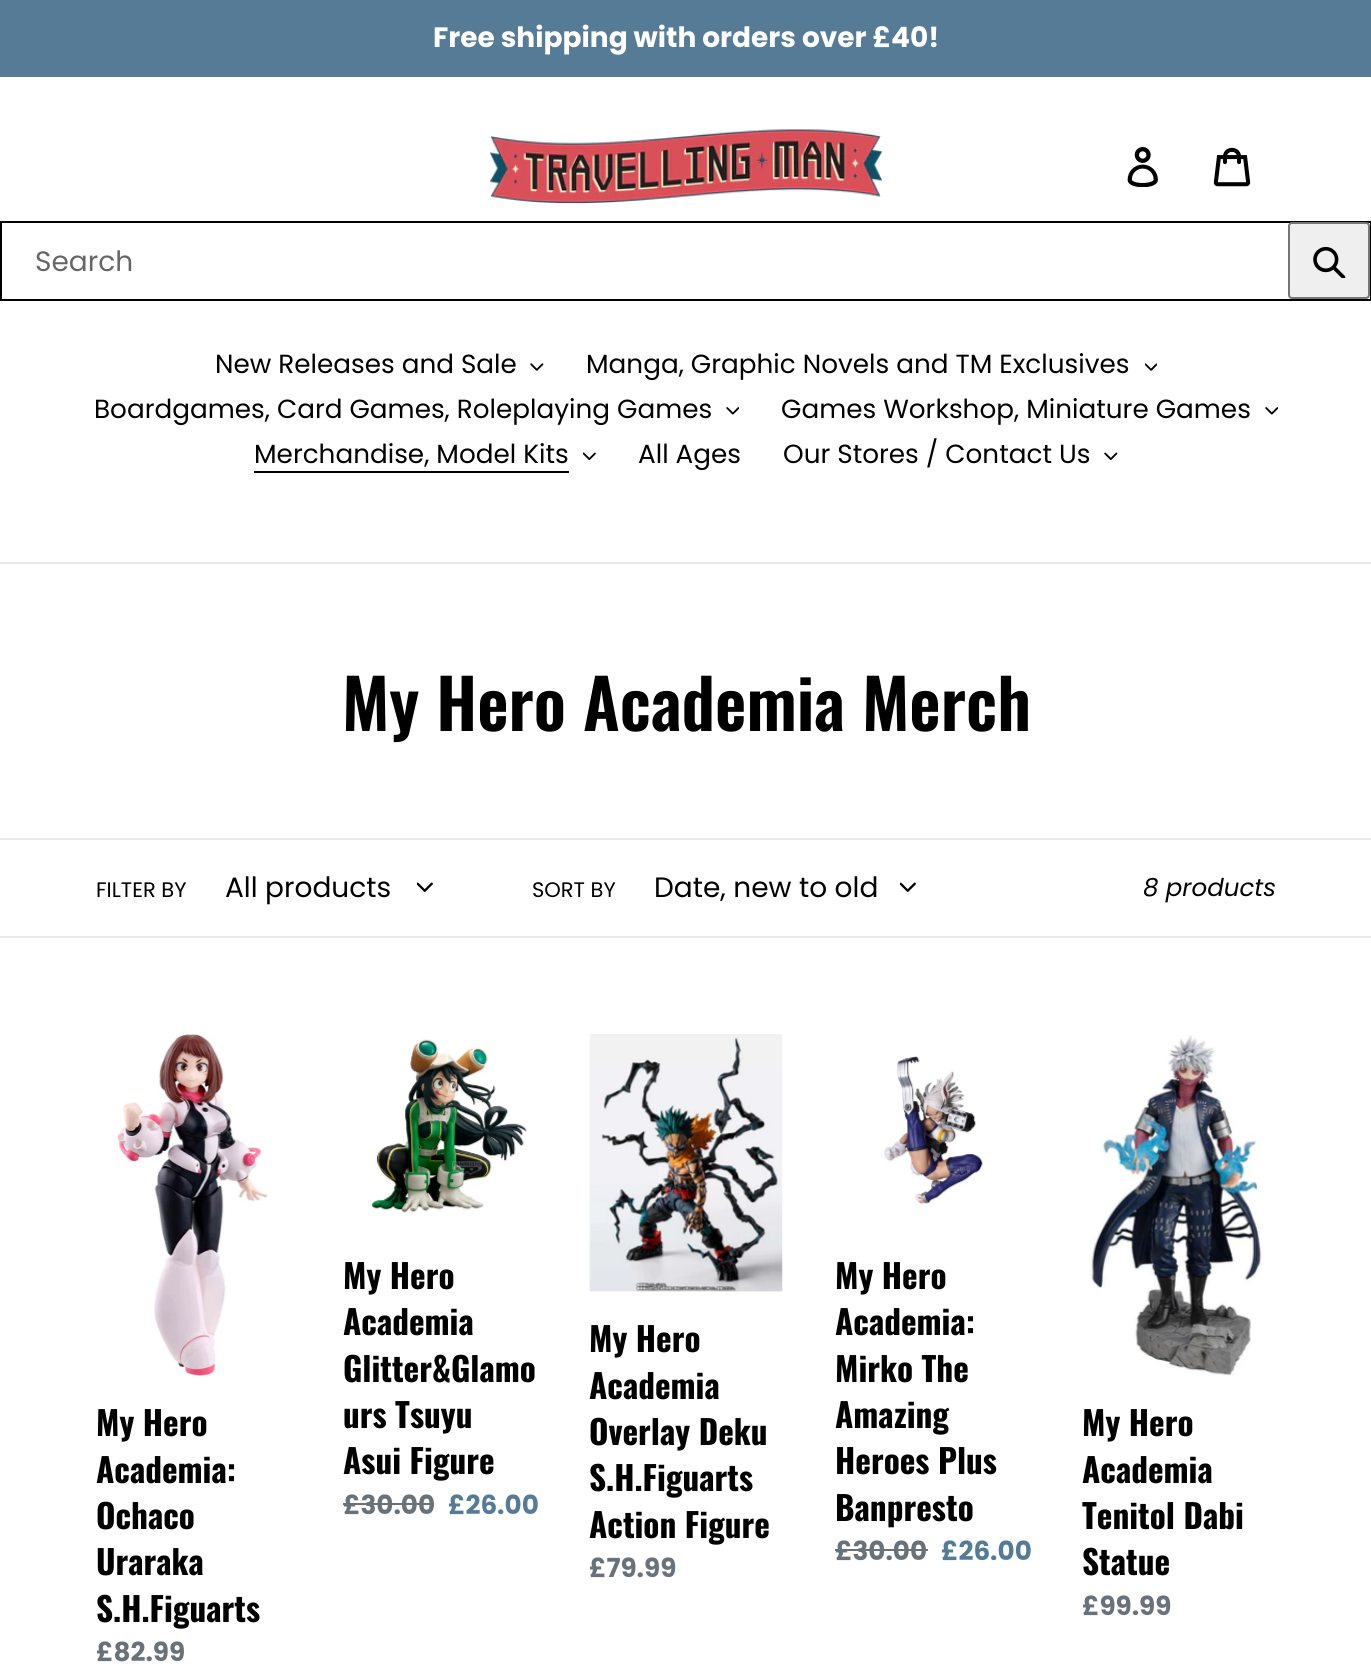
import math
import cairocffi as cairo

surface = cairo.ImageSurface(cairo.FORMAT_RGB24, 1371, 1671)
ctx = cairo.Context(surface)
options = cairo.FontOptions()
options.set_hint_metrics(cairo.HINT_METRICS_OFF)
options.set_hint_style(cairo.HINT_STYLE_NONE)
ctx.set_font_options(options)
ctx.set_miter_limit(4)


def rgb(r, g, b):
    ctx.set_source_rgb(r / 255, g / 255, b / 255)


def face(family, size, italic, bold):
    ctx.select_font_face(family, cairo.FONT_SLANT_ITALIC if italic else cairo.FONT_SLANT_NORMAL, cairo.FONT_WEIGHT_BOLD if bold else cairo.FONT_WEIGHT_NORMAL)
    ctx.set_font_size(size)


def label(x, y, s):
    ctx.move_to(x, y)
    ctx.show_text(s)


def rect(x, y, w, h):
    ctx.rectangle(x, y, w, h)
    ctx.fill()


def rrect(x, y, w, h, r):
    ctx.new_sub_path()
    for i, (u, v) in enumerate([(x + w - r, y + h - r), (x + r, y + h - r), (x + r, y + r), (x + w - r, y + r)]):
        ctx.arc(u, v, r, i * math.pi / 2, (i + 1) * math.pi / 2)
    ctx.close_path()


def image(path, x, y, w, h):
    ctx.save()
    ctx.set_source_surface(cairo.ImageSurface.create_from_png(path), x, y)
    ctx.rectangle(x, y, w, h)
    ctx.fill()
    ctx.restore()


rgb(255, 255, 255)
ctx.paint()
rgb(85, 123, 151)
rect(0, 0, 1371, 77)
face('Poppins', 28, 0, 1)
rgb(255, 255, 255)
label(433, 47, 'Free shipping with orders over £40!')
image('image0.png', 490, 129, 392, 74)
image('image1.png', 1127, 147, 31, 40)
image('image2.png', 1213, 147, 38, 40)
ctx.rectangle(1, 222, 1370, 78)
rgb(0, 0, 0)
ctx.stroke()
face('Poppins', 28, 0, 0)
rgb(102, 102, 102)
label(35, 271, 'Search')
rgb(239, 239, 239)
rrect(1289, 223, 80, 75, 3)
ctx.fill_preserve()
rgb(118, 118, 118)
ctx.stroke()
image('image3.png', 1313, 246, 33, 32)
rgb(232, 233, 235)
rect(0, 562, 1371, 2)
face('Poppins', 26.25, 0, 0)
rgb(0, 0, 0)
label(215, 373, 'New Releases and Sale')
image('image4.png', 530, 363, 14, 8)
label(586, 373, 'Manga, Graphic Novels and TM Exclusives')
image('image5.png', 1145, 363, 12, 8)
label(94, 418, 'Boardgames, Card Games, Roleplaying Games')
image('image6.png', 726, 407, 13, 8)
label(781, 418, 'Games Workshop, Miniature Games')
image('image6.png', 1265, 407, 13, 8)
label(254, 463, 'Merchandise, Model Kits')
rect(254, 471, 315, 2)
image('image7.png', 583, 452, 13, 8)
label(638, 463, 'All Ages')
label(783, 463, 'Our Stores / Contact Us')
image('image8.png', 1104, 452, 14, 8)
face('Oswald SemiBold', 68.25, 0, 0)
label(342, 731, 'My Hero Academia Merch')
rgb(232, 233, 235)
rect(0, 838, 1371, 2)
rect(0, 936, 1371, 2)
face('Poppins', 21, 0, 0)
rgb(0, 0, 0)
label(96, 897, 'FILTER BY')
face('Poppins', 28, 0, 0)
label(225, 897, 'All products')
image('image9.png', 417, 882, 16, 10)
face('Poppins', 21, 0, 0)
label(532, 897, 'SORT BY')
face('Poppins', 28, 0, 0)
label(654, 897, 'Date, new to old')
image('image9.png', 900, 882, 16, 10)
face('Poppins', 24.5, 1, 0)
label(1143, 896, '8 products')
image('image10.png', 117, 1034, 151, 342)
face('Oswald', 33.25, 0, 1)
label(96, 1436, 'My Hero')
label(96, 1483, 'Academia:')
label(96, 1529, 'Ochaco')
label(96, 1575, 'Uraraka')
label(96, 1622, 'S.H.Figuarts')
face('Poppins', 26.25, 0, 1)
rgb(105, 114, 123)
label(96, 1661, '£82.99')
image('image11.png', 371, 1039, 156, 174)
face('Oswald', 33.25, 0, 1)
rgb(0, 0, 0)
label(343, 1289, 'My Hero')
label(343, 1335, 'Academia')
label(343, 1382, 'Glitter&Glamo')
label(343, 1428, 'urs Tsuyu')
label(343, 1474, 'Asui Figure')
face('Poppins', 26.25, 0, 1)
rgb(105, 114, 123)
label(343, 1514, '£30.00')
rect(343, 1503, 91, 2)
rgb(85, 123, 151)
label(448, 1514, '£26.00')
image('image12.png', 589, 1034, 194, 258)
face('Oswald', 33.25, 0, 1)
rgb(0, 0, 0)
label(589, 1352, 'My Hero')
label(589, 1399, 'Academia')
label(589, 1445, 'Overlay Deku')
label(589, 1491, 'S.H.Figuarts')
label(589, 1538, 'Action Figure')
face('Poppins', 26.25, 0, 1)
rgb(105, 114, 123)
label(589, 1577, '£79.99')
image('image13.png', 882, 1056, 101, 150)
face('Oswald', 33.25, 0, 1)
rgb(0, 0, 0)
label(835, 1289, 'My Hero')
label(835, 1335, 'Academia:')
label(835, 1382, 'Mirko The')
label(835, 1428, 'Amazing')
label(835, 1474, 'Heroes Plus')
label(835, 1521, 'Banpresto')
face('Poppins', 26.25, 0, 1)
rgb(105, 114, 123)
label(835, 1560, '£30.00')
rect(835, 1549, 93, 2)
rgb(85, 123, 151)
label(941, 1560, '£26.00')
image('image14.png', 1090, 1035, 172, 341)
face('Oswald', 33.25, 0, 1)
rgb(0, 0, 0)
label(1082, 1436, 'My Hero')
label(1082, 1483, 'Academia')
label(1082, 1529, 'Tenitol Dabi')
label(1082, 1575, 'Statue')
face('Poppins', 26.25, 0, 1)
rgb(105, 114, 123)
label(1082, 1615, '£99.99')
surface.write_to_png('render.png')
